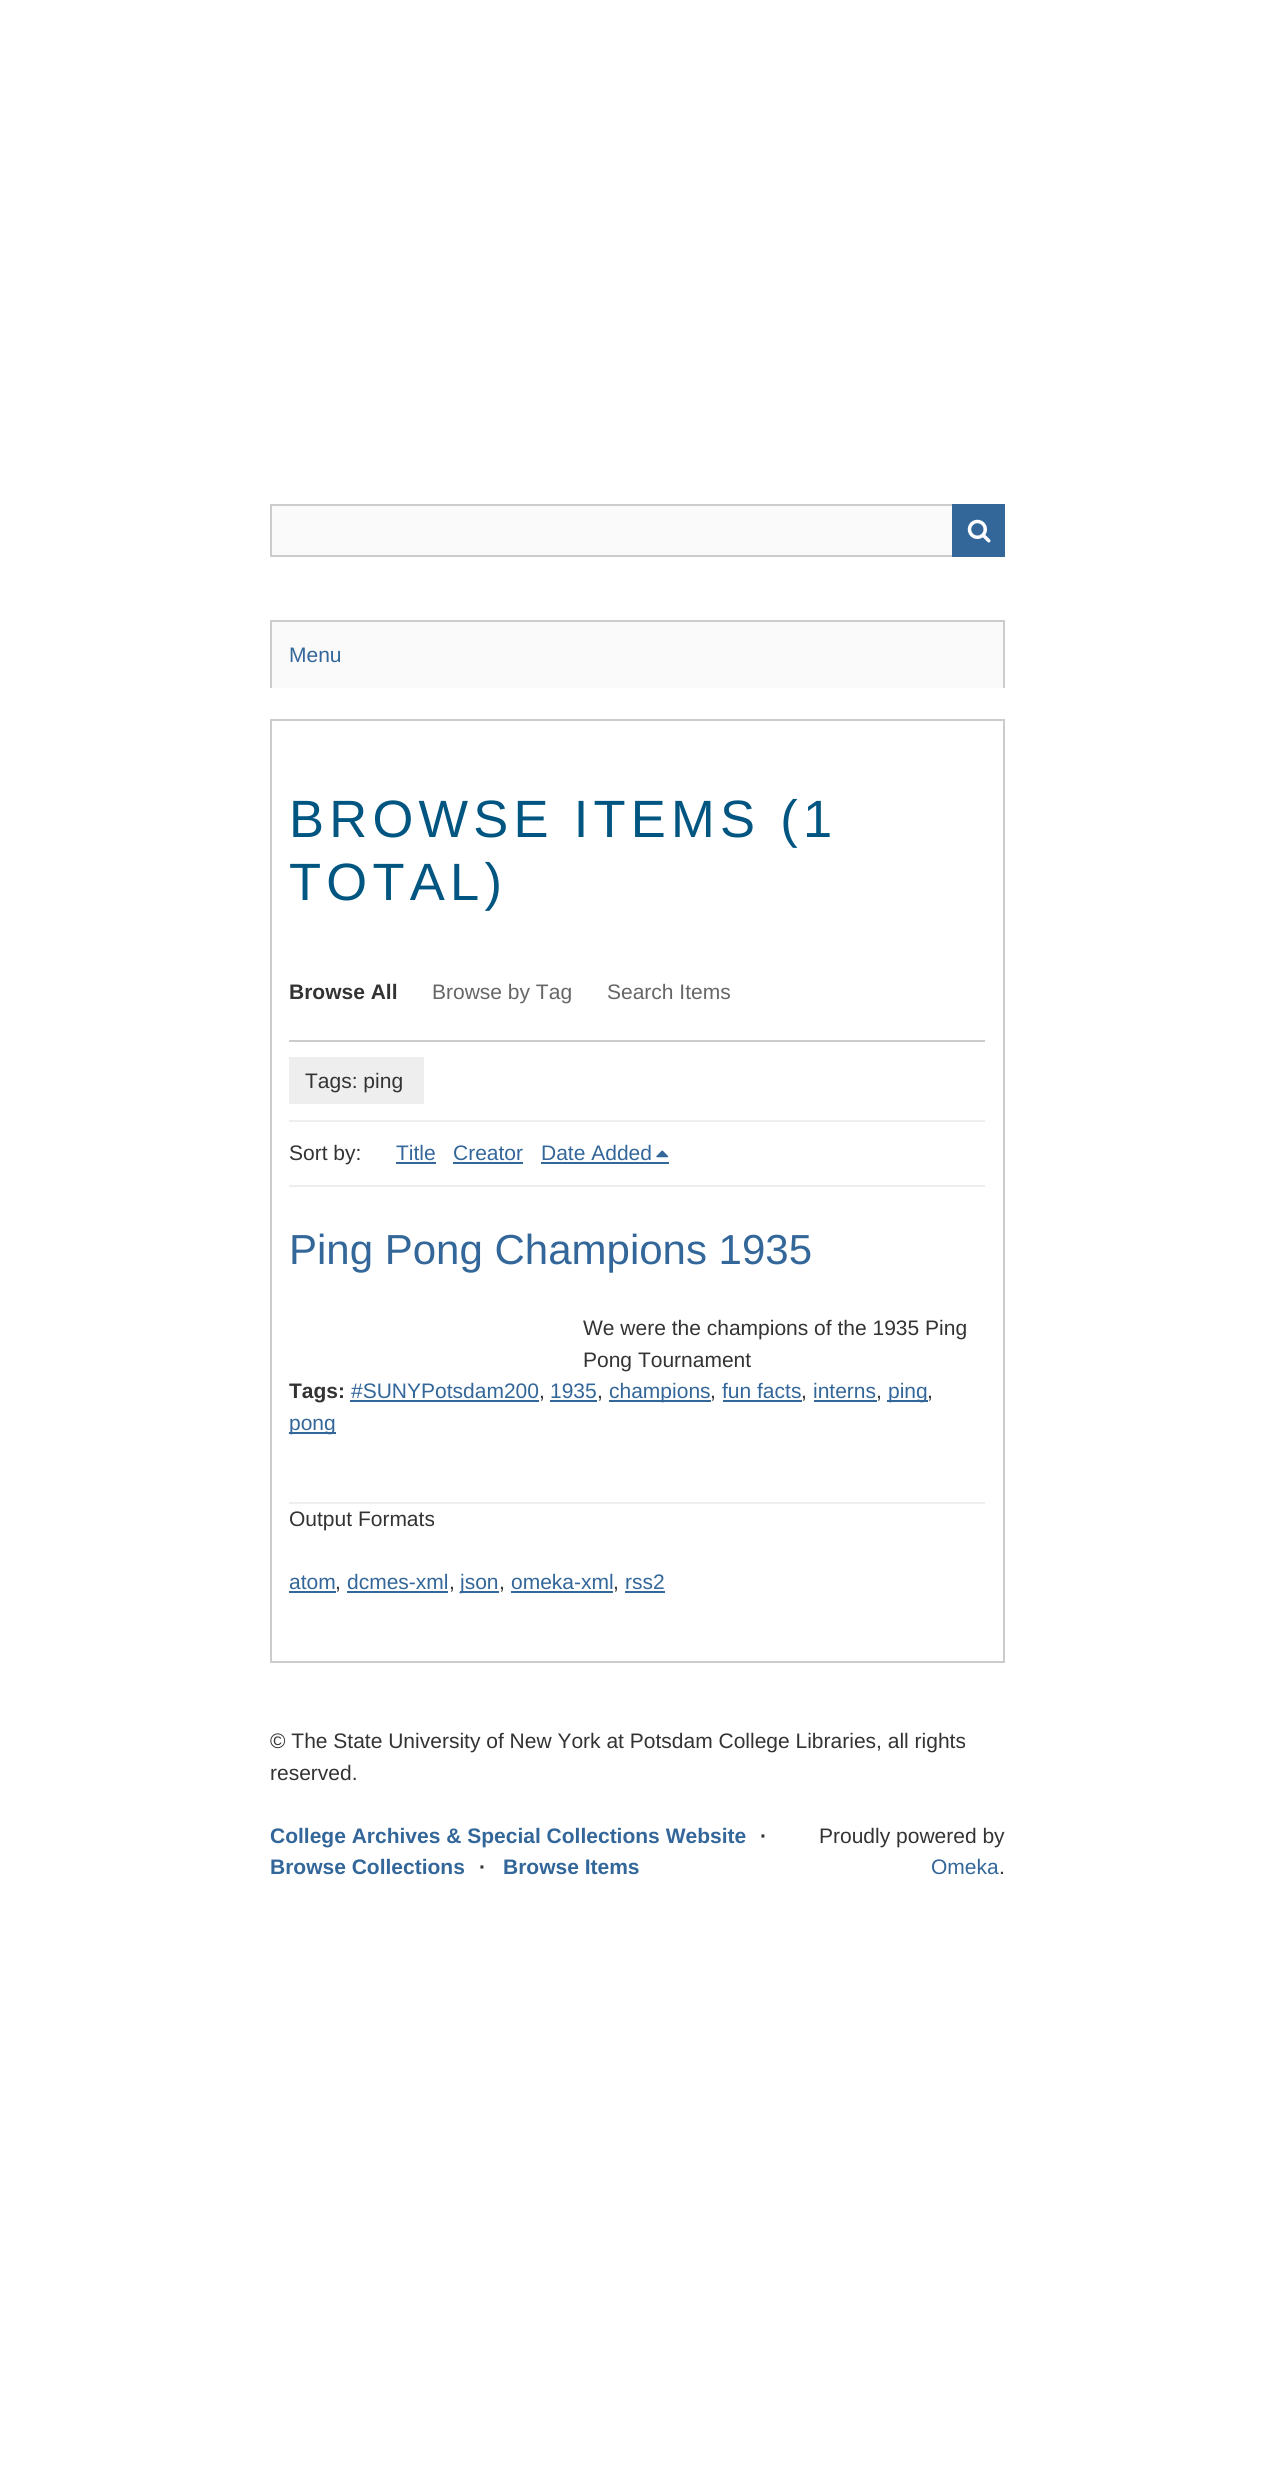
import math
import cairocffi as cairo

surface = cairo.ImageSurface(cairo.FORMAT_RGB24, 1273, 2468)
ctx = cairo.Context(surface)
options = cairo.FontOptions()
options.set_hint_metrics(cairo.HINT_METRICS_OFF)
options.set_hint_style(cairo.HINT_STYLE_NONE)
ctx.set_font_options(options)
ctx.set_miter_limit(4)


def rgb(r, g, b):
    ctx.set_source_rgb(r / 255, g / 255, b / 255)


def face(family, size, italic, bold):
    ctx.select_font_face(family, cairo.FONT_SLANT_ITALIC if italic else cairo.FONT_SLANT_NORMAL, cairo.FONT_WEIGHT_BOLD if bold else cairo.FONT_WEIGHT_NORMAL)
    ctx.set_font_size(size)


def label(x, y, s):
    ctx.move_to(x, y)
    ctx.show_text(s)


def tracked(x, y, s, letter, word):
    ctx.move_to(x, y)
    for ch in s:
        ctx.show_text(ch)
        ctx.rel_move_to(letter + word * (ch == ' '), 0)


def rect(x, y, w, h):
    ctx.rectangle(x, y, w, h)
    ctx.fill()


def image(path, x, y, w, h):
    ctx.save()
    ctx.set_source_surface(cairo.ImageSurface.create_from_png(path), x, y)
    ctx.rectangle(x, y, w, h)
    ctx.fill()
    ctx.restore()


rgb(255, 255, 255)
ctx.paint()
rgb(250, 250, 250)
rect(272, 506, 680, 49)
ctx.rectangle(271, 505, 733, 51)
rgb(204, 204, 204)
ctx.stroke()
rgb(51, 102, 153)
rect(952, 504, 53, 53)
image('image0.png', 967, 519, 24, 24)
rgb(250, 250, 250)
rect(272, 622, 731, 66)
rgb(204, 204, 204)
rect(270, 620, 735, 2)
rect(1003, 620, 2, 68)
rect(270, 620, 2, 68)
face('Liberation Sans', 21, 0, 0)
rgb(51, 102, 153)
label(289, 662, 'Menu')
ctx.rectangle(271, 720, 733, 942)
rgb(204, 204, 204)
ctx.stroke()
face('Liberation Sans', 52.5, 0, 0)
rgb(1, 85, 129)
tracked(289, 837, 'BROWSE ITEMS (1', 5.25, 0)
tracked(289, 900, 'TOTAL)', 5.25, 0)
rgb(204, 204, 204)
rect(289, 1040, 696, 2)
face('Liberation Sans', 21, 0, 1)
rgb(51, 51, 51)
label(289, 999, 'Browse All')
face('Liberation Sans', 21, 0, 0)
rgb(102, 102, 102)
label(432, 999, 'Browse by Tag')
label(607, 999, 'Search Items')
rgb(238, 238, 238)
rect(289, 1120, 696, 2)
rect(289, 1057, 135, 47)
rgb(51, 51, 51)
label(305, 1088, 'Tags: ping')
label(289, 1160, 'Sort by:')
rgb(51, 102, 153)
label(396, 1160, 'Title')
rect(396, 1162, 40, 2)
label(453, 1160, 'Creator')
rect(453, 1162, 70, 2)
label(541, 1160, 'Date Added')
rect(541, 1162, 128, 2)
image('image1.png', 656, 1150, 13, 8)
rgb(238, 238, 238)
rect(289, 1185, 696, 2)
rect(289, 1502, 696, 2)
face('Liberation Sans', 42, 0, 0)
rgb(51, 102, 153)
label(289, 1264, 'Ping Pong Champions 1935')
face('Liberation Sans', 21, 0, 0)
rgb(51, 51, 51)
label(583, 1335, 'We were the champions of the 1935 Ping')
label(583, 1367, 'Pong Tournament')
face('Liberation Sans', 21, 0, 1)
label(289, 1398, 'Tags:')
face('Liberation Sans', 21, 0, 0)
rgb(51, 102, 153)
label(351, 1398, '#SUNYPotsdam200')
rect(350, 1400, 189, 2)
rgb(51, 51, 51)
label(539, 1398, ',')
rgb(51, 102, 153)
label(550, 1398, '1935')
rect(550, 1400, 47, 2)
rgb(51, 51, 51)
label(597, 1398, ',')
rgb(51, 102, 153)
rect(609, 1400, 102, 2)
label(609, 1398, 'champions')
rgb(51, 51, 51)
label(710, 1398, ',')
rgb(51, 102, 153)
label(722, 1398, 'fun facts')
rect(723, 1400, 79, 2)
rgb(51, 51, 51)
label(801, 1398, ',')
rgb(51, 102, 153)
label(813, 1398, 'interns')
rect(814, 1400, 63, 2)
rgb(51, 51, 51)
label(876, 1398, ',')
rgb(51, 102, 153)
rect(887, 1400, 41, 2)
label(888, 1398, 'ping')
rgb(51, 51, 51)
label(927, 1398, ',')
rgb(51, 102, 153)
rect(289, 1432, 47, 2)
label(289, 1430, 'pong')
rgb(51, 51, 51)
label(289, 1526, 'Output Formats')
rgb(51, 102, 153)
label(289, 1589, 'atom')
rect(289, 1591, 47, 2)
rgb(51, 51, 51)
label(335, 1589, ',')
rgb(51, 102, 153)
label(347, 1589, 'dcmes-xml')
rect(347, 1591, 101, 2)
rgb(51, 51, 51)
label(449, 1589, ',')
rgb(51, 102, 153)
rect(460, 1591, 39, 2)
label(460, 1589, 'json')
rgb(51, 51, 51)
label(499, 1589, ',')
rgb(51, 102, 153)
label(511, 1589, 'omeka-xml')
rect(511, 1591, 102, 2)
rgb(51, 51, 51)
label(613, 1589, ',')
rgb(51, 102, 153)
label(625, 1589, 'rss2')
rect(625, 1591, 40, 2)
rgb(51, 51, 51)
label(270, 1748, '© The State University of New York at Potsdam College Libraries, all rights')
label(270, 1780, 'reserved.')
face('Liberation Sans', 21, 0, 1)
rgb(51, 102, 153)
label(270, 1843, 'College Archives & Special Collections Website')
rgb(51, 51, 51)
label(760, 1843, '·')
rgb(51, 102, 153)
label(270, 1874, 'Browse Collections')
rgb(51, 51, 51)
label(479, 1874, '·')
rgb(51, 102, 153)
label(503, 1874, 'Browse Items')
face('Liberation Sans', 21, 0, 0)
rgb(51, 51, 51)
label(819, 1843, 'Proudly powered by')
rgb(51, 102, 153)
label(931, 1874, 'Omeka')
rgb(51, 51, 51)
label(999, 1874, '.')
surface.write_to_png('render.png')
